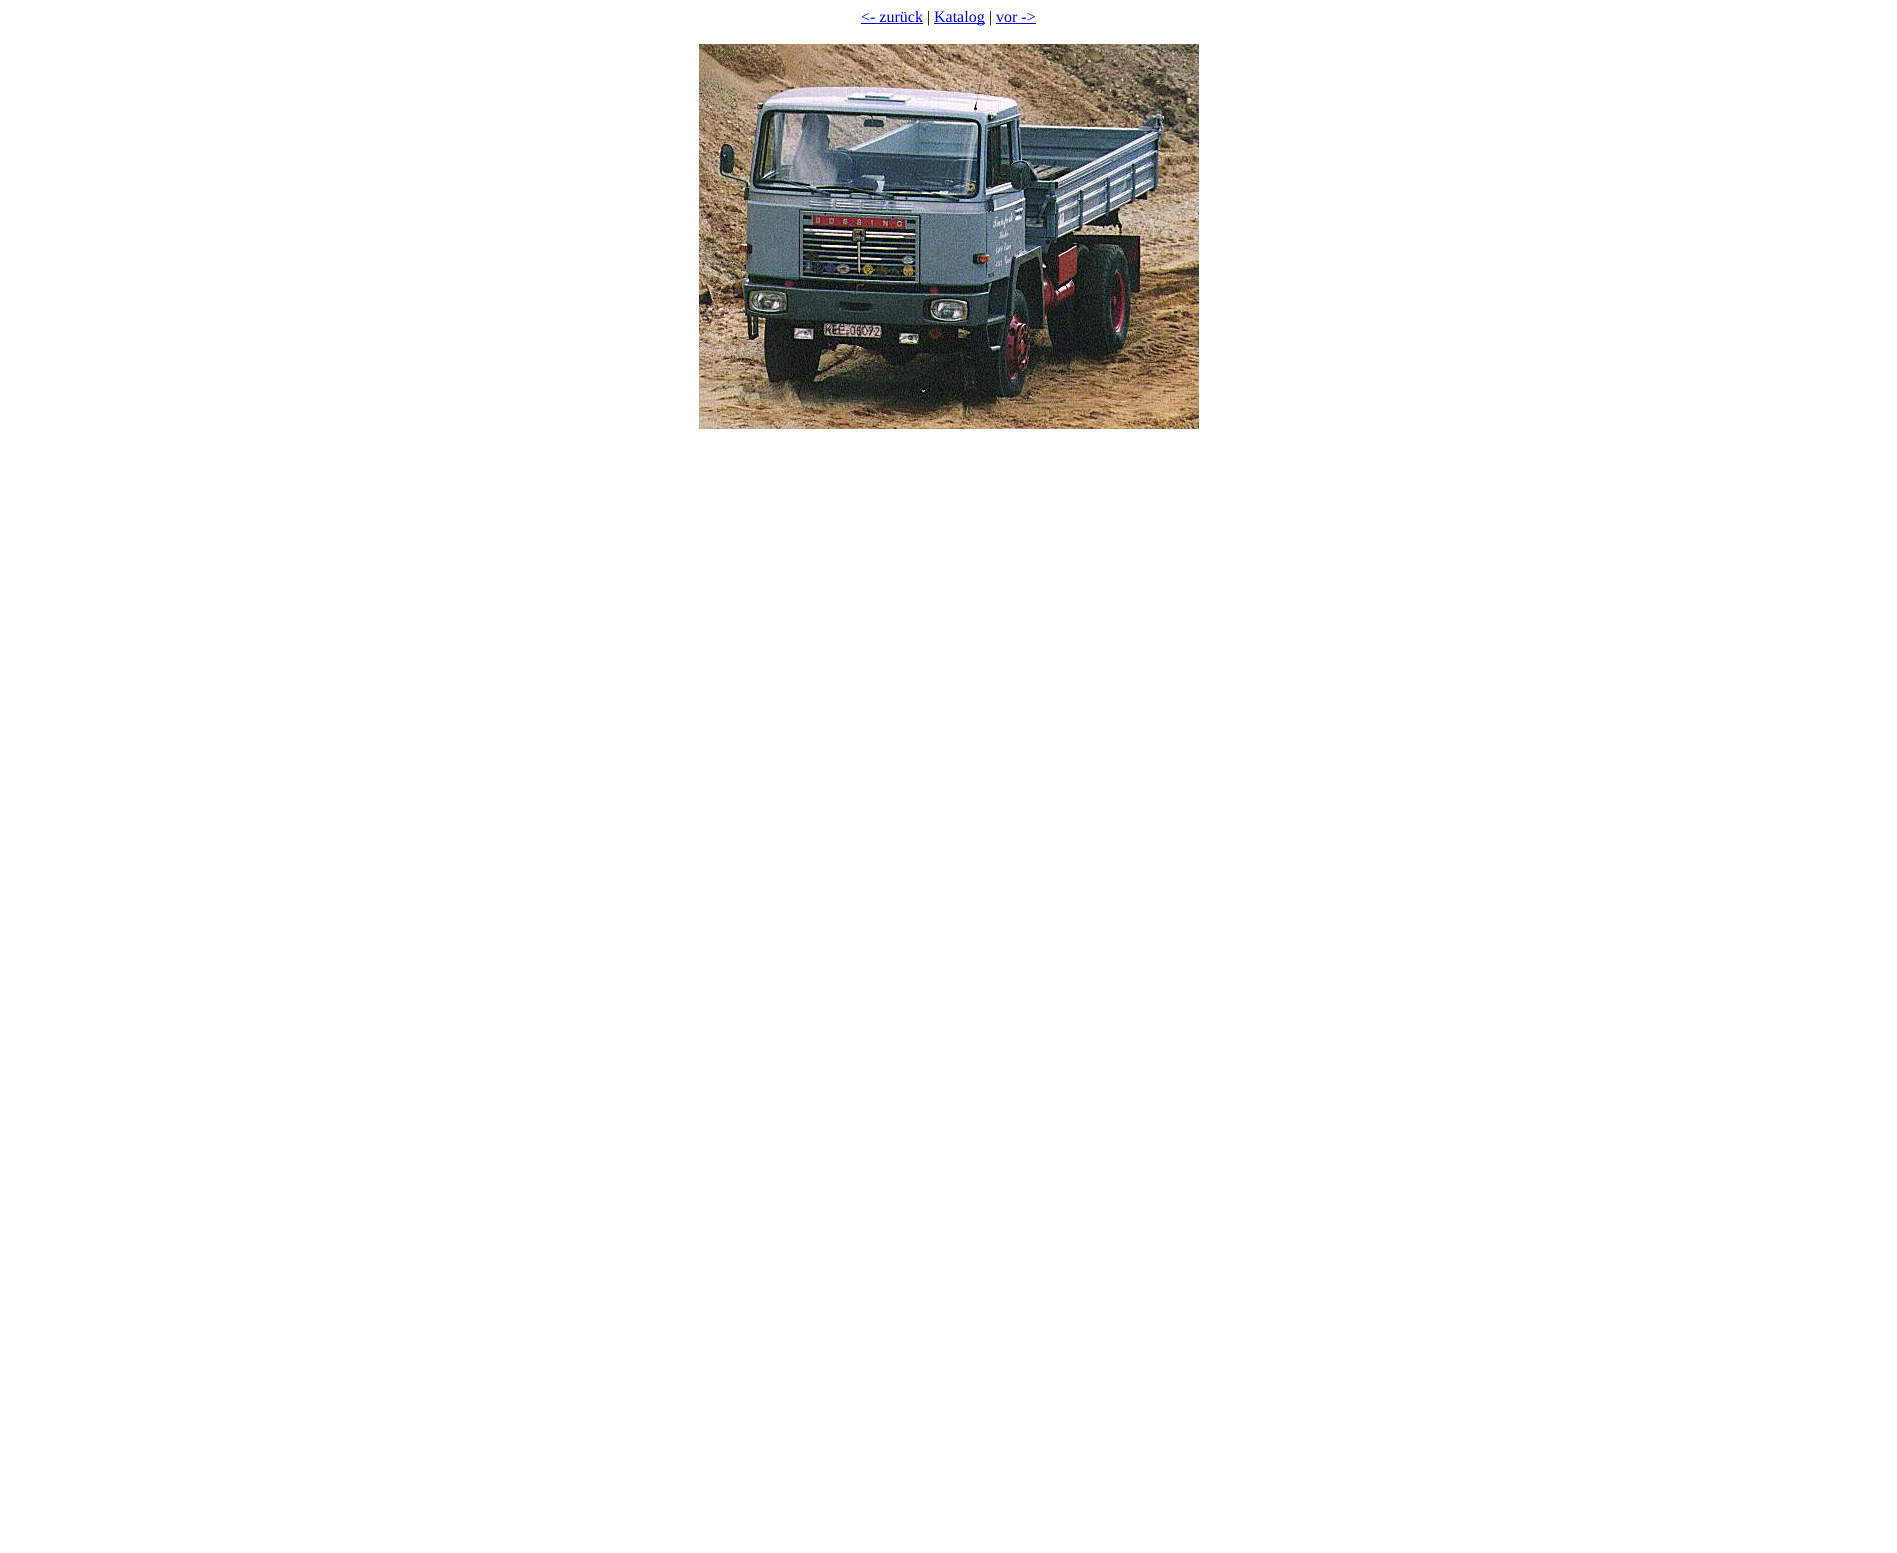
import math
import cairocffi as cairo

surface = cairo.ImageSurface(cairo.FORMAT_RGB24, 1897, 1553)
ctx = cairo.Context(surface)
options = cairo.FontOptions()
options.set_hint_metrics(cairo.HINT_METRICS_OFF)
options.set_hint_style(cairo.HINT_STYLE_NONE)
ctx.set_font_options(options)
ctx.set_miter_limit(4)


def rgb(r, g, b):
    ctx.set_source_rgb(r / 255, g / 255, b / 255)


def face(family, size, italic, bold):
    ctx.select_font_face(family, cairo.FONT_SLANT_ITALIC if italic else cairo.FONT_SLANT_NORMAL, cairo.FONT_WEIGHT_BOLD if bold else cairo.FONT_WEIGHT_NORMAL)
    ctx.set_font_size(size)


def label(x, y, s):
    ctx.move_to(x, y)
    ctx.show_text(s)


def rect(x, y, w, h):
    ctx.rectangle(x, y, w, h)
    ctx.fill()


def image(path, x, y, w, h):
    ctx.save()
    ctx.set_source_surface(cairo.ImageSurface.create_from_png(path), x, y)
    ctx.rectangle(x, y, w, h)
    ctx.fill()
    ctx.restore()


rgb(255, 255, 255)
ctx.paint()
face('Liberation Serif', 16, 0, 0)
rgb(0, 0, 238)
label(861, 22, '<- zurück')
rect(861, 23, 62, 1)
rgb(0, 0, 0)
label(927, 22, '|')
rgb(0, 0, 238)
rect(934, 23, 51, 1)
label(934, 22, 'Katalog')
rgb(0, 0, 0)
label(989, 22, '|')
rgb(0, 0, 238)
label(996, 22, 'vor ->')
rect(996, 23, 40, 1)
image('image0.png', 699, 44, 500, 385)
surface.write_to_png('render.png')
